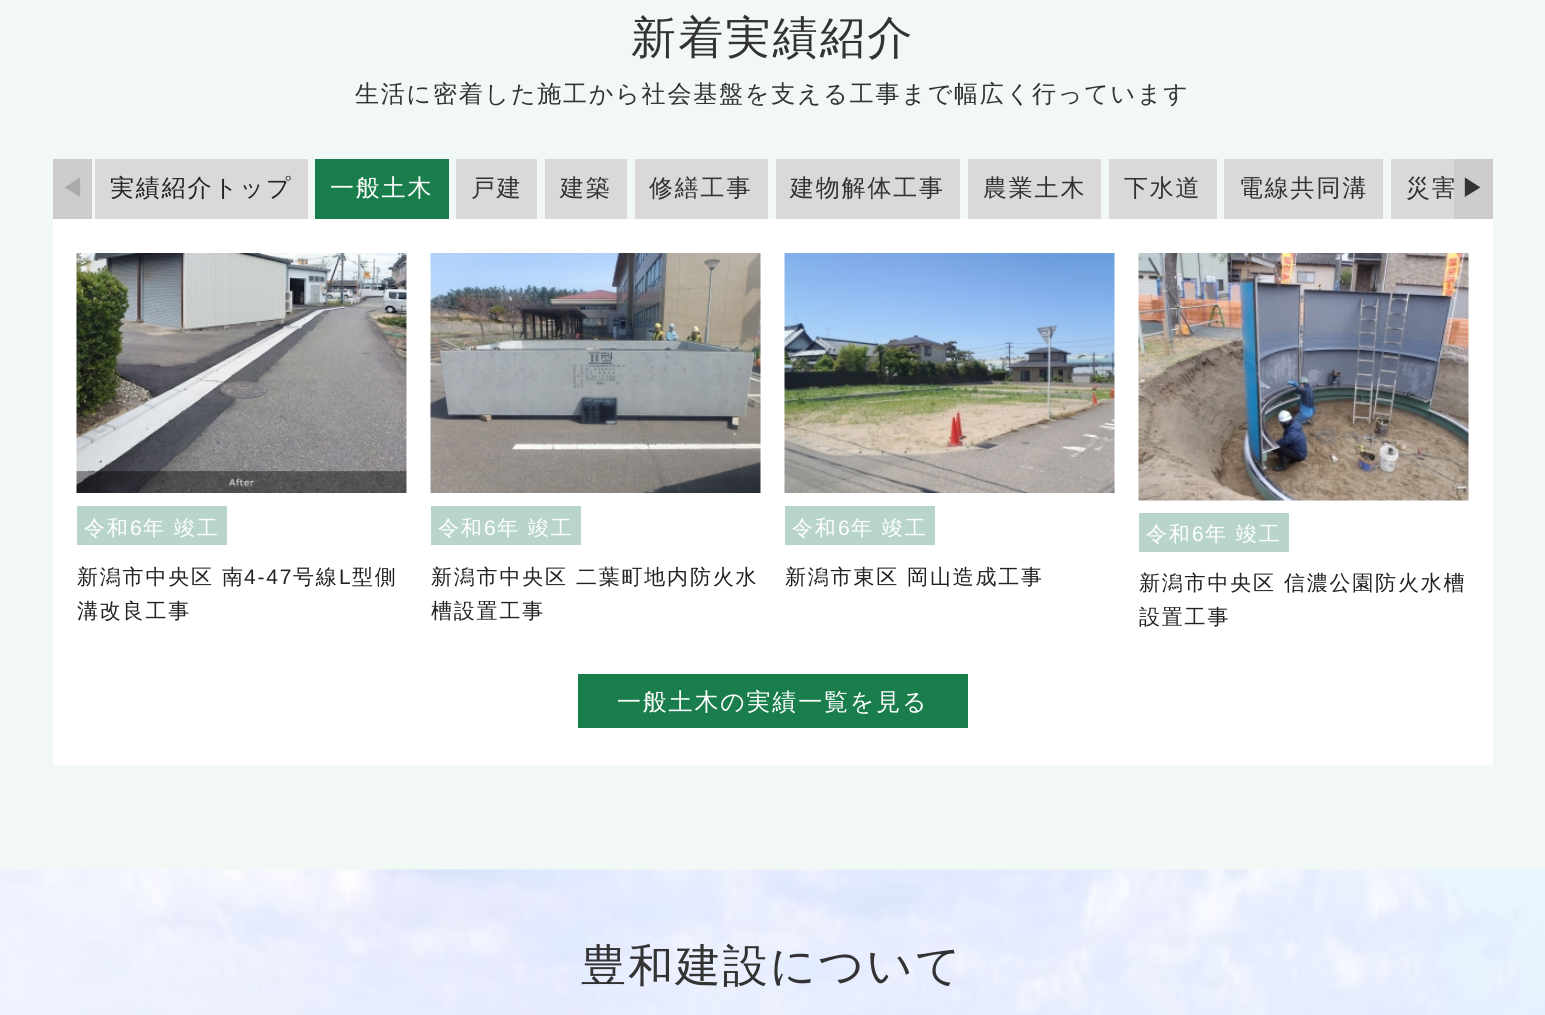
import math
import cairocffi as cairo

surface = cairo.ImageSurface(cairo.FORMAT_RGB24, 1545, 1015)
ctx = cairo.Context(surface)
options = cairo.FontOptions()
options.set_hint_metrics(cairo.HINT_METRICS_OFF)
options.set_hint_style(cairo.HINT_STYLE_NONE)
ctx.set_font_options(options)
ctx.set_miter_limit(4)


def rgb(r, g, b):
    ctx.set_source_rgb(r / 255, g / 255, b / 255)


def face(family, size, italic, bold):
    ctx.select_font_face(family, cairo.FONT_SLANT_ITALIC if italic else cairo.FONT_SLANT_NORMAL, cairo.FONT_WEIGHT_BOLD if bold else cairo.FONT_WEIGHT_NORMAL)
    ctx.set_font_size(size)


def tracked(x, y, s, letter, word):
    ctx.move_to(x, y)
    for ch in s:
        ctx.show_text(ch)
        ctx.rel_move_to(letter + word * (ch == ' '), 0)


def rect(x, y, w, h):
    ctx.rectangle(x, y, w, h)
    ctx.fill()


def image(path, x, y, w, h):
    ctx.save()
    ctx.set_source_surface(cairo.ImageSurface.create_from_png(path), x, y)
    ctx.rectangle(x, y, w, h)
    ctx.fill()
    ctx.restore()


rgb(241, 248, 245)
ctx.paint()
face('WenQuanYi Zen Hei Medium', 45, 0, 0)
rgb(51, 51, 51)
tracked(631, 53, '新着実績紹介', 2.25, 0)
face('WenQuanYi Zen Hei Medium', 24, 0, 0)
tracked(355, 102, '生活に密着した施工から社会基盤を支える工事まで幅広く行っています', 1.8, 0)
rgb(255, 255, 255)
rect(53, 219, 1440, 546)
rgb(204, 204, 204)
rect(53, 159, 39, 60)
rgb(170, 170, 170)
tracked(60, 196, '◀', 1.8, 0)
rgb(218, 216, 216)
rect(95, 159, 213, 60)
rgb(34, 34, 34)
tracked(110, 196, '実績紹介トップ', 1.8, 0)
rgb(25, 126, 76)
rect(315, 159, 134, 60)
rgb(255, 255, 255)
tracked(330, 196, '一般土木', 1.8, 0)
rgb(218, 216, 216)
rect(456, 159, 81, 60)
rgb(51, 51, 51)
tracked(471, 196, '戸建', 1.8, 0)
rgb(218, 216, 216)
rect(545, 159, 82, 60)
rgb(51, 51, 51)
tracked(560, 196, '建築', 1.8, 0)
rgb(218, 216, 216)
rect(635, 159, 133, 60)
rgb(51, 51, 51)
tracked(649, 196, '修繕工事', 1.8, 0)
rgb(218, 216, 216)
rect(776, 159, 184, 60)
rgb(51, 51, 51)
tracked(790, 196, '建物解体工事', 1.8, 0)
rgb(218, 216, 216)
rect(968, 159, 133, 60)
rgb(51, 51, 51)
tracked(983, 196, '農業土木', 1.8, 0)
rgb(218, 216, 216)
rect(1109, 159, 108, 60)
rgb(51, 51, 51)
tracked(1124, 196, '下水道', 1.8, 0)
rgb(218, 216, 216)
rect(1224, 159, 159, 60)
rgb(51, 51, 51)
tracked(1239, 196, '電線共同溝', 1.8, 0)
rgb(218, 216, 216)
rect(1391, 159, 63, 60)
rgb(51, 51, 51)
tracked(1406, 196, '災害', 1.8, 0)
rgb(204, 204, 204)
rect(1454, 159, 39, 60)
rgb(51, 51, 51)
tracked(1461, 196, '▶', 1.8, 0)
image('image0.png', 76, 253, 331, 240)
rgb(185, 213, 201)
rect(77, 506, 150, 39)
face('WenQuanYi Zen Hei Medium', 21, 0, 0)
rgb(255, 255, 255)
tracked(84, 535, '令和', 1.8, 0)
face('Liberation Sans', 21, 0, 0)
tracked(130, 535, '6', 1.8, 0)
face('WenQuanYi Zen Hei Medium', 21, 0, 0)
tracked(143, 535, '年 竣工', 1.8, 0)
rgb(34, 34, 34)
tracked(77, 584, '新潟市中央区 南', 1.8, 0)
face('Liberation Sans', 21, 0, 0)
tracked(244, 584, '4-47', 1.8, 0)
face('WenQuanYi Zen Hei Medium', 21, 0, 0)
tracked(293, 584, '号線', 1.8, 0)
face('Liberation Sans', 21, 0, 0)
tracked(339, 584, 'L', 1.8, 0)
face('WenQuanYi Zen Hei Medium', 21, 0, 0)
tracked(352, 584, '型側', 1.8, 0)
tracked(77, 618, '溝改良工事', 1.8, 0)
image('image1.png', 430, 253, 331, 240)
rgb(185, 213, 201)
rect(431, 506, 150, 39)
rgb(255, 255, 255)
tracked(438, 535, '令和', 1.8, 0)
face('Liberation Sans', 21, 0, 0)
tracked(484, 535, '6', 1.8, 0)
face('WenQuanYi Zen Hei Medium', 21, 0, 0)
tracked(497, 535, '年 竣工', 1.8, 0)
rgb(34, 34, 34)
tracked(431, 584, '新潟市中央区 二葉町地内防火水', 1.8, 0)
tracked(431, 618, '槽設置工事', 1.8, 0)
image('image2.png', 784, 253, 331, 240)
rgb(185, 213, 201)
rect(785, 506, 150, 39)
rgb(255, 255, 255)
tracked(792, 535, '令和', 1.8, 0)
face('Liberation Sans', 21, 0, 0)
tracked(838, 535, '6', 1.8, 0)
face('WenQuanYi Zen Hei Medium', 21, 0, 0)
tracked(851, 535, '年 竣工', 1.8, 0)
rgb(34, 34, 34)
tracked(785, 584, '新潟市東区 岡山造成工事', 1.8, 0)
image('image3.png', 1138, 253, 331, 248)
rgb(185, 213, 201)
rect(1139, 513, 150, 39)
rgb(255, 255, 255)
tracked(1146, 541, '令和', 1.8, 0)
face('Liberation Sans', 21, 0, 0)
tracked(1192, 541, '6', 1.8, 0)
face('WenQuanYi Zen Hei Medium', 21, 0, 0)
tracked(1205, 541, '年 竣工', 1.8, 0)
rgb(34, 34, 34)
tracked(1139, 590, '新潟市中央区 信濃公園防火水槽', 1.8, 0)
tracked(1139, 624, '設置工事', 1.8, 0)
rgb(25, 126, 76)
rect(578, 674, 390, 54)
face('WenQuanYi Zen Hei Medium', 24, 0, 0)
rgb(255, 255, 255)
tracked(617, 710, '一般土木の実績一覧を見る', 1.8, 0)
image('image4.png', 0, 869, 1545, 146)
face('WenQuanYi Zen Hei Medium', 45, 0, 0)
rgb(51, 51, 51)
tracked(581, 981, '豊和建設について', 2.25, 0)
surface.write_to_png('render.png')
